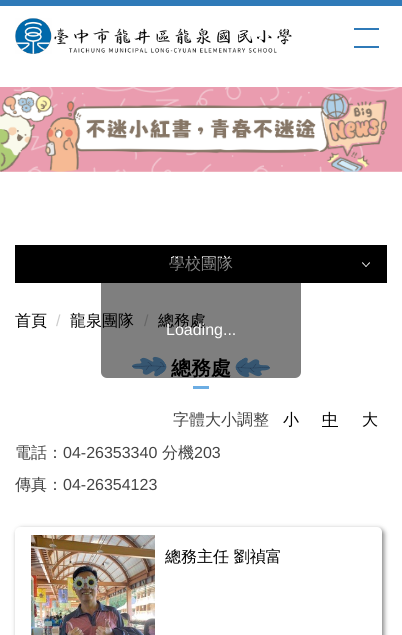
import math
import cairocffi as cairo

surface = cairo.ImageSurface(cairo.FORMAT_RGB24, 402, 635)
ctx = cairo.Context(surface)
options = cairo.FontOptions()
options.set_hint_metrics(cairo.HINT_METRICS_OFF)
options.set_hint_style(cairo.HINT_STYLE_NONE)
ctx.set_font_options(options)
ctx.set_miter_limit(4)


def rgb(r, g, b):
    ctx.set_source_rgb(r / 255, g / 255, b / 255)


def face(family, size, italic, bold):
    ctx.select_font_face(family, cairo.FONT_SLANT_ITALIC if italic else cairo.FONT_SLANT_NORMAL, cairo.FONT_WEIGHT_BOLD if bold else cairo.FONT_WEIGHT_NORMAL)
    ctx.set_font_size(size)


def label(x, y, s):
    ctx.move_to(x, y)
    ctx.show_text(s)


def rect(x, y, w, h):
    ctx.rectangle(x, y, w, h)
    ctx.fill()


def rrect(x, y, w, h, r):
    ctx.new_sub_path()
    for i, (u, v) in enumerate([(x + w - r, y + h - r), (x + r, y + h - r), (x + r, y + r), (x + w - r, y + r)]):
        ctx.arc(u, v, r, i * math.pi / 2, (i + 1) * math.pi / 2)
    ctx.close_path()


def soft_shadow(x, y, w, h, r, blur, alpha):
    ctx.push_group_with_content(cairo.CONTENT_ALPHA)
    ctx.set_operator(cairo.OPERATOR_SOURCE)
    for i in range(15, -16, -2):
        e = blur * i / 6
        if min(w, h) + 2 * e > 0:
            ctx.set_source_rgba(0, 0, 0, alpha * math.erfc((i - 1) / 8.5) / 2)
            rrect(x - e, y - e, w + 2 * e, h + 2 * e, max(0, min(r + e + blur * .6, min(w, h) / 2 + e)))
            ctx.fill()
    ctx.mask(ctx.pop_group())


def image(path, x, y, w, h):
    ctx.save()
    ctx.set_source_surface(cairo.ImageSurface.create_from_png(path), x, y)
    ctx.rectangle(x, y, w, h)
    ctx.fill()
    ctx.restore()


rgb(255, 255, 255)
ctx.paint()
rgb(47, 122, 184)
rect(0, 0, 402, 6)
image('image0.png', 15, 18, 277, 36)
rect(354, 28, 25, 2)
rect(354, 46, 25, 2)
image('image1.png', 0, 87, 402, 85)
rgb(0, 0, 0)
rect(15, 245, 372, 38)
face('WenQuanYi Zen Hei Medium', 16, 0, 0)
rgb(255, 255, 255)
label(169, 269, '學校團隊')
ctx.new_path()
ctx.move_to(369.5, 262)
ctx.line_to(370, 263)
ctx.line_to(366, 267)
ctx.line_to(365.5, 266.5)
ctx.close_path()
ctx.fill()
ctx.new_path()
ctx.move_to(362.5, 262)
ctx.line_to(366.5, 266.5)
ctx.line_to(366, 267)
ctx.line_to(362, 263)
ctx.close_path()
ctx.fill()
rgb(0, 0, 0)
label(15, 326, '首頁')
face('Liberation Sans', 16, 0, 0)
rgb(204, 204, 204)
label(56, 326, '/')
face('WenQuanYi Zen Hei Medium', 16, 0, 0)
rgb(0, 0, 0)
label(70, 326, '龍泉團隊')
face('Liberation Sans', 16, 0, 0)
rgb(204, 204, 204)
label(144, 326, '/')
face('WenQuanYi Zen Hei Medium', 16, 0, 0)
rgb(0, 0, 0)
label(158, 326, '總務處')
image('image2.png', 132, 356, 35, 21)
face('WenQuanYi Zen Hei', 20, 0, 1)
label(171, 375, '總務處')
image('image3.png', 235, 357, 35, 20)
rgb(108, 173, 227)
rect(193, 386, 16, 3)
face('WenQuanYi Zen Hei Medium', 16, 0, 0)
rgb(68, 68, 68)
label(173, 425, '字體大小調整')
rgb(0, 0, 0)
label(283, 425, '小')
rect(322, 426, 16, 1)
label(322, 425, '中')
label(362, 425, '大')
rgb(68, 68, 68)
label(15, 458, '電話：')
face('Liberation Sans', 16, 0, 0)
label(63, 458, '04-26353340')
face('WenQuanYi Zen Hei Medium', 16, 0, 0)
label(162, 458, '分機')
face('Liberation Sans', 16, 0, 0)
label(194, 458, '203')
face('WenQuanYi Zen Hei Medium', 16, 0, 0)
label(15, 490, '傳真：')
face('Liberation Sans', 16, 0, 0)
label(63, 490, '04-26354123')
rgb(0, 0, 0)
soft_shadow(17, 529, 367, 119, 5, 2.5, 0.5)
rgb(255, 255, 255)
rrect(15, 527, 367, 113, 5)
ctx.fill()
image('image4.png', 31, 535, 124, 100)
face('WenQuanYi Zen Hei Medium', 16, 0, 0)
rgb(0, 0, 0)
label(165, 562, '總務主任 劉禎富')
ctx.set_source_rgba(0, 0, 0, 0.5)
rrect(101, 258, 200, 120, 6)
ctx.fill()
face('Liberation Sans', 16, 0, 0)
rgb(255, 255, 255)
label(166, 335, 'Loading...')
surface.write_to_png('render.png')
